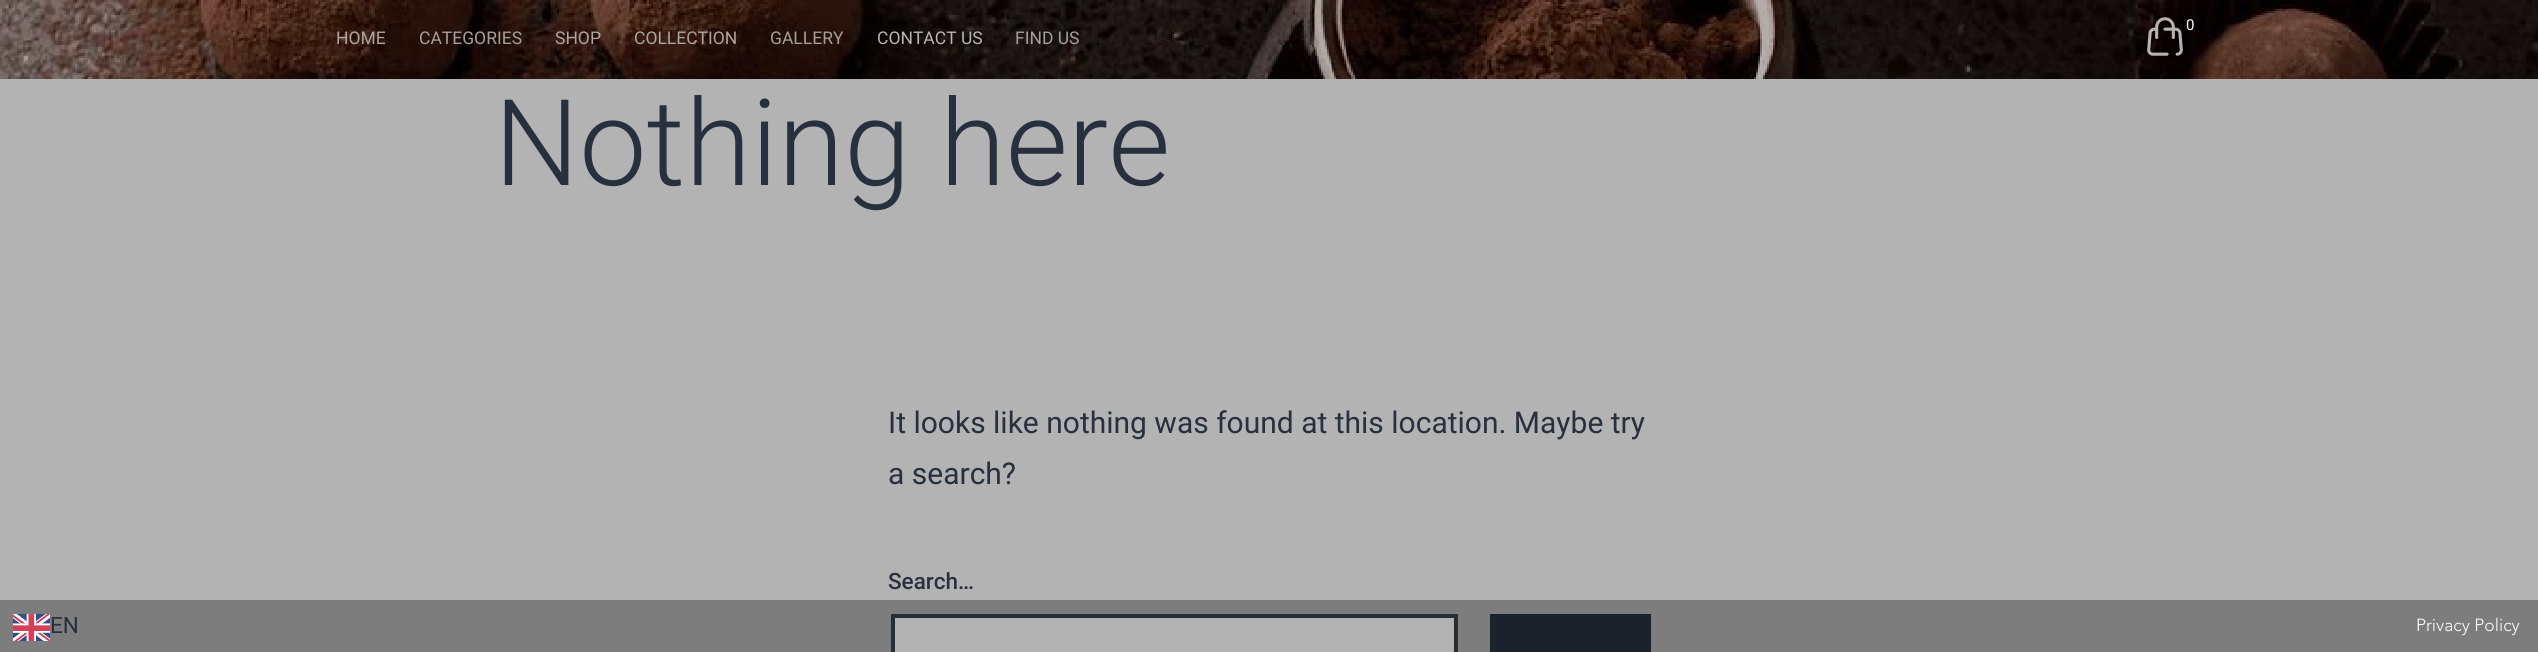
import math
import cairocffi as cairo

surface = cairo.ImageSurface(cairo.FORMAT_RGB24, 2538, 652)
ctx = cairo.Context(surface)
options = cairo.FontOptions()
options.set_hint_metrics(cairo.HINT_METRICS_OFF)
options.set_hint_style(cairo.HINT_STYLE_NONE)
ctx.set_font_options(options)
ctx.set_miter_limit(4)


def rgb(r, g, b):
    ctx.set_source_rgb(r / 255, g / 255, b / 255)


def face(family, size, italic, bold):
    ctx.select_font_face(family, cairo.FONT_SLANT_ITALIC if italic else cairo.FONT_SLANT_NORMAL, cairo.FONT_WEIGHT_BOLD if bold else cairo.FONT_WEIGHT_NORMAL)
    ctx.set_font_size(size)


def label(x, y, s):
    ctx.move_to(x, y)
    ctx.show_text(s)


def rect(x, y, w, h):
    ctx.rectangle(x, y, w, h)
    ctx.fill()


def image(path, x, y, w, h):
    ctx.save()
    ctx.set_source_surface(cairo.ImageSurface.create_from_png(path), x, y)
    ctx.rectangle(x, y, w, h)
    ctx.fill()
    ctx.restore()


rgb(179, 179, 179)
ctx.paint()
image('image0.png', 0, 0, 2538, 79)
image('image1.png', 2147, 17, 36, 39)
face('Roboto', 15, 0, 0)
rgb(255, 255, 255)
label(2186, 30, '0')
face('Roboto', 17.5, 0, 0)
rgb(174, 164, 160)
label(336, 44, 'HOME')
rgb(165, 158, 156)
label(419, 44, 'CATEGORIES')
rgb(174, 164, 160)
label(555, 44, 'SHOP')
label(634, 44, 'COLLECTION')
rgb(165, 158, 156)
label(770, 44, 'GALLERY')
rgb(183, 182, 181)
label(877, 44, 'CONTACT US')
rgb(165, 158, 156)
label(1015, 44, 'FIND US')
face('Roboto Light', 120, 0, 0)
rgb(40, 48, 61)
label(494, 185, 'Nothing here')
face('Roboto', 30, 0, 0)
label(888, 433, 'It looks like nothing was found at this location. Maybe try')
label(888, 484, 'a search?')
face('Roboto Medium', 22.5, 0, 0)
label(888, 589, 'Search…')
rgb(125, 125, 125)
rect(0, 600, 2538, 52)
rgb(179, 179, 179)
ctx.rectangle(893, 616, 563, 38)
ctx.fill_preserve()
rgb(40, 46, 54)
ctx.set_line_width(4)
ctx.stroke()
rgb(28, 34, 43)
rect(1490, 614, 161, 38)
image('image2.png', 13, 614, 37, 27)
face('Roboto', 22.5, 0, 0)
rgb(40, 48, 61)
label(50, 633, 'EN')
face('Avenir Light', 17.5, 0, 0)
rgb(255, 255, 255)
label(2416, 631, 'Privacy Policy')
surface.write_to_png('render.png')
